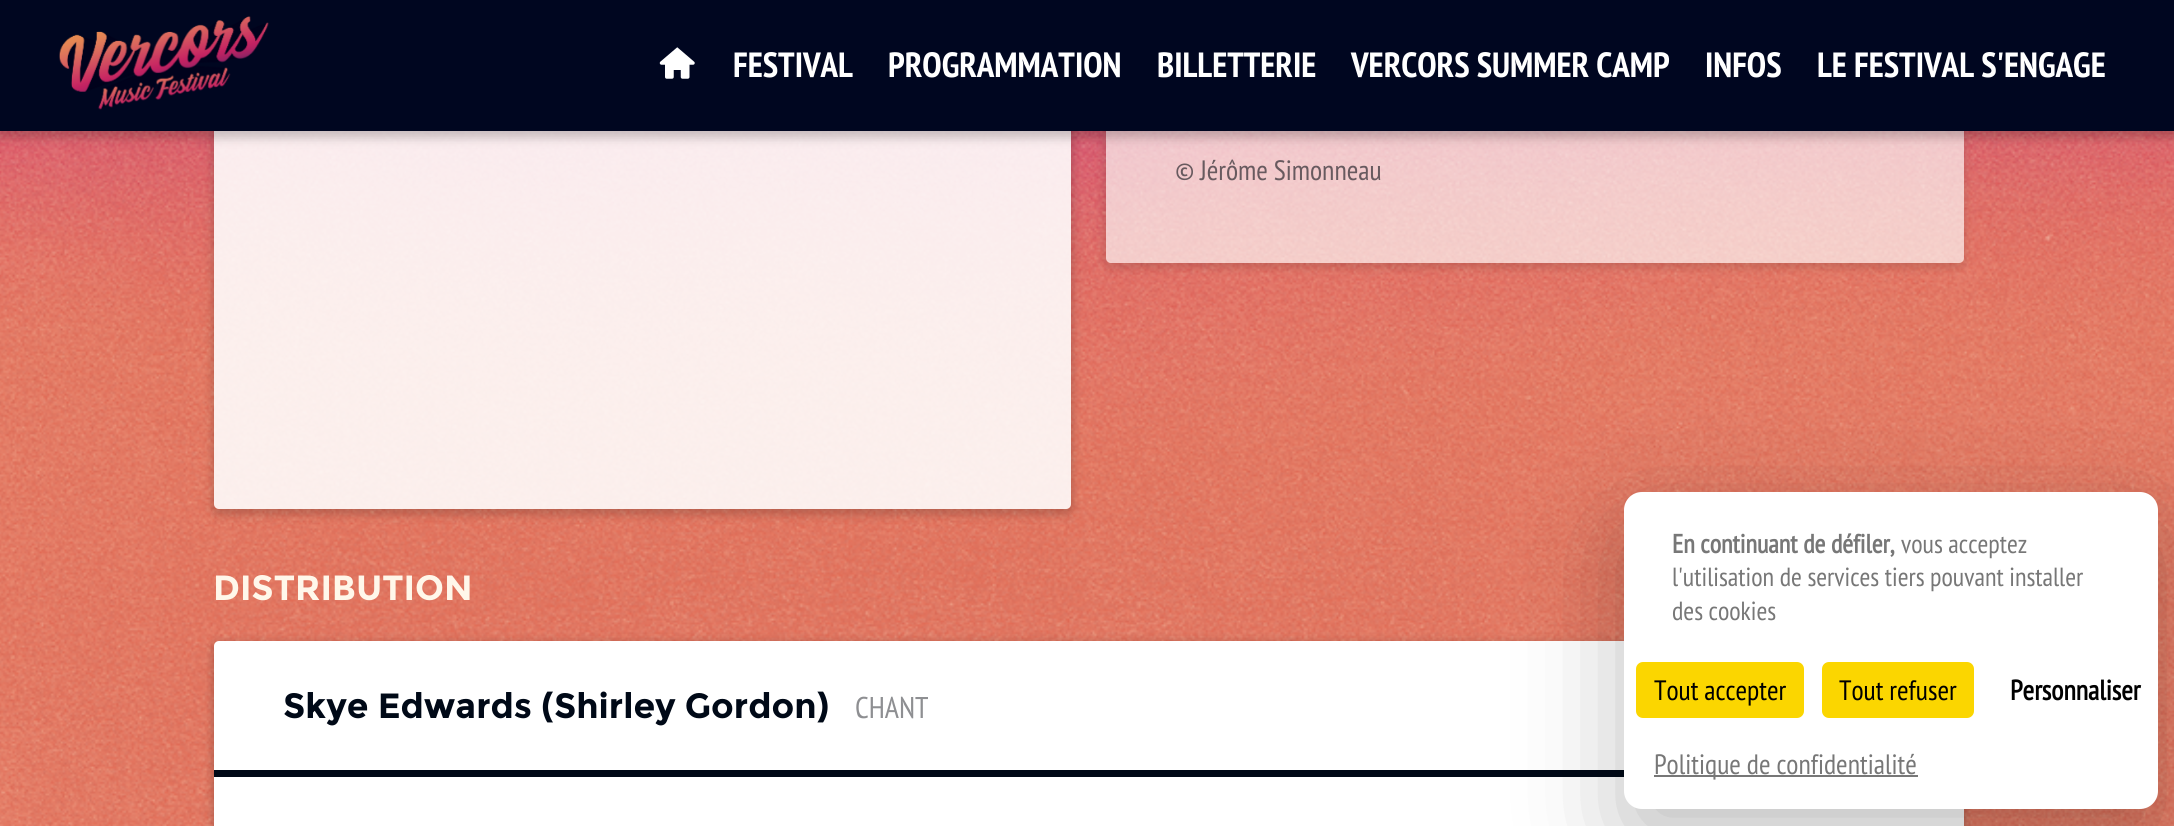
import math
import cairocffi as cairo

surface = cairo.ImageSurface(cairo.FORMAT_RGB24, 2174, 826)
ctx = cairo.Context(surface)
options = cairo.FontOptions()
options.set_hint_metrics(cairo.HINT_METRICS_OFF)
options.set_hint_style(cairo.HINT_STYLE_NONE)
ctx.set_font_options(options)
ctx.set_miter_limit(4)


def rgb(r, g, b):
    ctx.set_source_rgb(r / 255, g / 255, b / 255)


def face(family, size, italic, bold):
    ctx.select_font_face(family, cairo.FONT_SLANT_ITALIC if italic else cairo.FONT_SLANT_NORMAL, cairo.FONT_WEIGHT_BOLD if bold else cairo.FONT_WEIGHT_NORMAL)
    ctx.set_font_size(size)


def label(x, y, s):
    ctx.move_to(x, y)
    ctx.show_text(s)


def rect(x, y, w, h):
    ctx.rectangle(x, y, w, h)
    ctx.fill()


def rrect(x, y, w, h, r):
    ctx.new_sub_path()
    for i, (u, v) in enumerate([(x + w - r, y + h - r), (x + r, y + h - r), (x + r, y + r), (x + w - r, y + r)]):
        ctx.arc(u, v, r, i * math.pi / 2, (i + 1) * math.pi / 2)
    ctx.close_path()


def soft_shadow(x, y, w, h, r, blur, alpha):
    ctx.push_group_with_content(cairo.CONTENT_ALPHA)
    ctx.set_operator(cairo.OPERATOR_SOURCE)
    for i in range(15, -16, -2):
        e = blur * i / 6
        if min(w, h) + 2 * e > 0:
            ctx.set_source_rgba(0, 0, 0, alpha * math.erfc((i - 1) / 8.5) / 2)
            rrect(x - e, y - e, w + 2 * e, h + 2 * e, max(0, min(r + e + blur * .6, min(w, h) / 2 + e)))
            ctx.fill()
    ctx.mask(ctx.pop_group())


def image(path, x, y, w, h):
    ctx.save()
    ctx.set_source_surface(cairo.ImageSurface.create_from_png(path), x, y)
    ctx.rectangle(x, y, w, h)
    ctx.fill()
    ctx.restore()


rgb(255, 255, 255)
ctx.paint()
image('image0.png', 0, 131, 2174, 695)
ctx.save()
ctx.set_fill_rule(cairo.FILL_RULE_EVEN_ODD)
ctx.new_path()
ctx.move_to(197, 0)
ctx.line_to(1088, 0)
ctx.line_to(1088, 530)
ctx.line_to(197, 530)
ctx.close_path()
ctx.move_to(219, -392)
ctx.line_to(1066, -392)
ctx.curve_to(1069, -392, 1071, -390, 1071, -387)
ctx.line_to(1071, 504)
ctx.curve_to(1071, 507, 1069, 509, 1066, 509)
ctx.line_to(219, 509)
ctx.curve_to(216, 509, 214, 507, 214, 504)
ctx.line_to(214, -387)
ctx.curve_to(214, -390, 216, -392, 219, -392)
ctx.close_path()
ctx.clip()
rgb(0, 0, 0)
soft_shadow(212, -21, 861, 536, 7, 4.5, 0.18)
ctx.restore()
ctx.set_source_rgba(1, 1, 1, 0.88)
rrect(214, -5, 857, 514, 5)
ctx.fill()
ctx.save()
ctx.set_fill_rule(cairo.FILL_RULE_EVEN_ODD)
ctx.new_path()
ctx.move_to(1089, 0)
ctx.line_to(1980, 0)
ctx.line_to(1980, 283)
ctx.line_to(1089, 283)
ctx.close_path()
ctx.move_to(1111, -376)
ctx.line_to(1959, -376)
ctx.curve_to(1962, -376, 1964, -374, 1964, -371)
ctx.line_to(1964, 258)
ctx.curve_to(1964, 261, 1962, 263, 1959, 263)
ctx.line_to(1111, 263)
ctx.curve_to(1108, 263, 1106, 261, 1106, 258)
ctx.line_to(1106, -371)
ctx.curve_to(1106, -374, 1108, -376, 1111, -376)
ctx.close_path()
ctx.clip()
rgb(0, 0, 0)
soft_shadow(1104, -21, 861, 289, 7, 4.5, 0.13)
ctx.restore()
ctx.set_source_rgba(1, 1, 1, 0.65)
rrect(1106, -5, 858, 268, 5)
ctx.fill()
rgb(0, 0, 0)
soft_shadow(-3, 0, 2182, 138, 0, 5, 0.2)
rgb(0, 6, 32)
rect(0, 0, 2174, 131)
image('image1.png', 59, 16, 210, 94)
image('image2.png', 659, 47, 36, 32)
face('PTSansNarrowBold', 35, 0, 1)
rgb(255, 255, 255)
label(733, 77, 'FESTIVAL')
label(888, 77, 'PROGRAMMATION')
label(1157, 77, 'BILLETTERIE')
label(1351, 77, 'VERCORS SUMMER CAMP')
label(1705, 77, 'INFOS')
label(1817, 77, 'LE FESTIVAL S\'ENGAGE')
face('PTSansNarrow', 28, 0, 0)
rgb(104, 90, 95)
label(1175, 180, '©')
label(1200, 180, 'Jérôme Simonneau')
face('Montserrat', 35, 0, 1)
rgb(255, 247, 234)
label(213, 600, 'DISTRIBUTION')
rgb(0, 0, 0)
soft_shadow(212, 642, 1753, 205, 7, 4.5, 0.2)
rgb(255, 255, 255)
rrect(214, 641, 1750, 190, 5)
ctx.fill()
rgb(0, 9, 23)
rect(214, 770, 1410, 7)
label(283, 718, 'Skye Edwards (Shirley Gordon)')
face('PTSansNarrow', 30, 0, 0)
rgb(142, 143, 146)
label(855, 718, 'CHANT')
rgb(0, 0, 0)
soft_shadow(1624, 527, 534, 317, 18, 52.5, 0.25)
rgb(255, 255, 255)
rrect(1624, 492, 534, 317, 18)
ctx.fill()
face('PTSansNarrow', 26.25, 0, 1)
rgb(119, 119, 119)
label(1672, 553, 'En continuant de défiler,')
face('PTSansNarrow', 26.25, 0, 0)
label(1901, 553, 'vous acceptez')
label(1672, 586, 'l\'utilisation de services tiers pouvant installer')
label(1672, 620, 'des cookies')
rgb(251, 214, 0)
rrect(1636, 662, 168, 56, 7)
ctx.fill()
face('PTSansNarrow', 28, 0, 0)
rgb(0, 0, 0)
label(1654, 700, 'Tout accepter')
rgb(251, 214, 0)
rrect(1822, 662, 152, 56, 7)
ctx.fill()
rgb(0, 0, 0)
label(1839, 700, 'Tout refuser')
face('PTSansNarrow', 28, 0, 1)
label(2010, 700, 'Personnaliser')
rgb(119, 119, 119)
rect(1654, 775, 264, 2)
face('PTSansNarrow', 28, 0, 0)
label(1654, 774, 'Politique de confidentialité')
surface.write_to_png('render.png')
